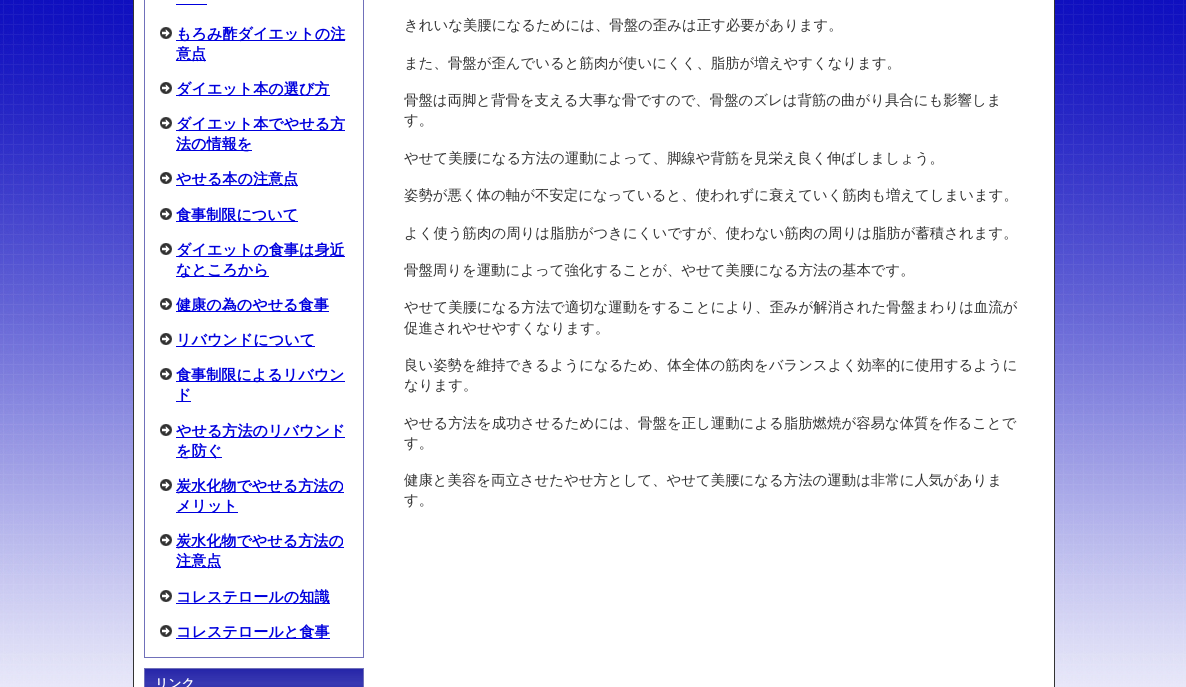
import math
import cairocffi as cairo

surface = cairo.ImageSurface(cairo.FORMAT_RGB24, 1186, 687)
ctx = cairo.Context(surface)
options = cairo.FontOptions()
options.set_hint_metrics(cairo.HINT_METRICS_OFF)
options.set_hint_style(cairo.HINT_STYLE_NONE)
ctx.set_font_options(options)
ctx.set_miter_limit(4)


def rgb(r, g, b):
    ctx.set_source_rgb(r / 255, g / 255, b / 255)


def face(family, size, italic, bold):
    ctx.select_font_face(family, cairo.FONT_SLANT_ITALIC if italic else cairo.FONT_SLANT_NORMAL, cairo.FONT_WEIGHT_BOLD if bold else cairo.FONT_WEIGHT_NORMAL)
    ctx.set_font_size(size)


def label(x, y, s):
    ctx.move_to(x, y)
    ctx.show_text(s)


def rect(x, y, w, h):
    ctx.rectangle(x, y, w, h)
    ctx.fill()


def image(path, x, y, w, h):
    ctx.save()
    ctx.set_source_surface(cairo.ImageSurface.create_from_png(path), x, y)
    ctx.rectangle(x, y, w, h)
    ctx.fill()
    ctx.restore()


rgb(255, 255, 255)
ctx.paint()
image('image0.png', 0, 0, 1186, 687)
rgb(255, 255, 255)
rect(134, 0, 920, 687)
rgb(51, 51, 51)
rect(1054, 0, 1, 687)
rect(133, 0, 1, 687)
ctx.rectangle(144.5, -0.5, 219, 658)
rgb(112, 112, 186)
ctx.set_line_width(1)
ctx.stroke()
rgb(0, 0, 221)
rect(176, 4, 31, 1)
image('image1.png', 160, 27, 12, 12)
rect(176, 40, 169, 1)
face('WenQuanYi Zen Hei', 15.1, 0, 1)
label(176, 39, 'もろみ酢ダイエットの注')
rect(176, 60, 30, 1)
label(176, 59, '意点')
image('image1.png', 160, 82, 12, 12)
rect(176, 95, 154, 1)
label(176, 94, 'ダイエット本の選び方')
image('image1.png', 160, 117, 12, 12)
rect(176, 130, 169, 1)
label(176, 129, 'ダイエット本でやせる方')
rect(176, 150, 76, 1)
label(176, 149, '法の情報を')
image('image1.png', 160, 172, 12, 12)
rect(176, 185, 122, 1)
label(176, 184, 'やせる本の注意点')
image('image1.png', 160, 208, 12, 12)
rect(176, 221, 122, 1)
label(176, 220, '食事制限について')
image('image1.png', 160, 243, 12, 12)
rect(176, 256, 169, 1)
label(176, 255, 'ダイエットの食事は身近')
rect(176, 276, 93, 1)
label(176, 275, 'なところから')
image('image1.png', 160, 298, 12, 12)
rect(176, 311, 153, 1)
label(176, 310, '健康の為のやせる食事')
image('image1.png', 160, 333, 12, 12)
rect(176, 346, 139, 1)
label(176, 345, 'リバウンドについて')
image('image1.png', 160, 368, 12, 12)
rect(176, 381, 169, 1)
label(176, 380, '食事制限によるリバウン')
rect(176, 401, 15, 1)
label(176, 400, 'ド')
image('image1.png', 160, 424, 12, 12)
rect(176, 437, 169, 1)
label(176, 436, 'やせる方法のリバウンド')
rect(176, 457, 46, 1)
label(176, 456, 'を防ぐ')
image('image1.png', 160, 479, 12, 12)
rect(176, 492, 168, 1)
label(176, 491, '炭水化物でやせる方法の')
rect(176, 512, 62, 1)
label(176, 511, 'メリット')
image('image1.png', 160, 534, 12, 12)
rect(176, 547, 168, 1)
label(176, 546, '炭水化物でやせる方法の')
rect(176, 567, 45, 1)
label(176, 566, '注意点')
image('image1.png', 160, 590, 12, 12)
rect(176, 603, 154, 1)
label(176, 602, 'コレステロールの知識')
image('image1.png', 160, 625, 12, 12)
rect(176, 638, 154, 1)
label(176, 637, 'コレステロールと食事')
ctx.rectangle(144.5, 668.5, 219, 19)
rgb(112, 112, 186)
ctx.stroke()
image('image2.png', 145, 669, 218, 18)
face('WenQuanYi Zen Hei', 13, 0, 1)
rgb(255, 255, 255)
label(155, 688, 'リンク')
face('WenQuanYi Zen Hei Medium', 14.4, 0, 0)
rgb(51, 51, 51)
label(404, 30, 'きれいな美腰になるためには、骨盤の歪みは正す必要があります。')
label(404, 68, 'また、骨盤が歪んでいると筋肉が使いにくく、脂肪が増えやすくなります。')
label(404, 105, '骨盤は両脚と背骨を支える大事な骨ですので、骨盤のズレは背筋の曲がり具合にも影響しま')
label(404, 125, 'す。')
label(404, 163, 'やせて美腰になる方法の運動によって、脚線や背筋を見栄え良く伸ばしましょう。')
label(404, 200, '姿勢が悪く体の軸が不安定になっていると、使われずに衰えていく筋肉も増えてしまいます。')
label(404, 238, 'よく使う筋肉の周りは脂肪がつきにくいですが、使わない筋肉の周りは脂肪が蓄積されます。')
label(404, 275, '骨盤周りを運動によって強化することが、やせて美腰になる方法の基本です。')
label(404, 312, 'やせて美腰になる方法で適切な運動をすることにより、歪みが解消された骨盤まわりは血流が')
label(404, 333, '促進されやせやすくなります。')
label(404, 370, '良い姿勢を維持できるようになるため、体全体の筋肉をバランスよく効率的に使用するように')
label(404, 390, 'なります。')
label(404, 428, 'やせる方法を成功させるためには、骨盤を正し運動による脂肪燃焼が容易な体質を作ることで')
label(404, 448, 'す。')
label(404, 485, '健康と美容を両立させたやせ方として、やせて美腰になる方法の運動は非常に人気がありま')
label(404, 505, 'す。')
surface.write_to_png('render.png')
